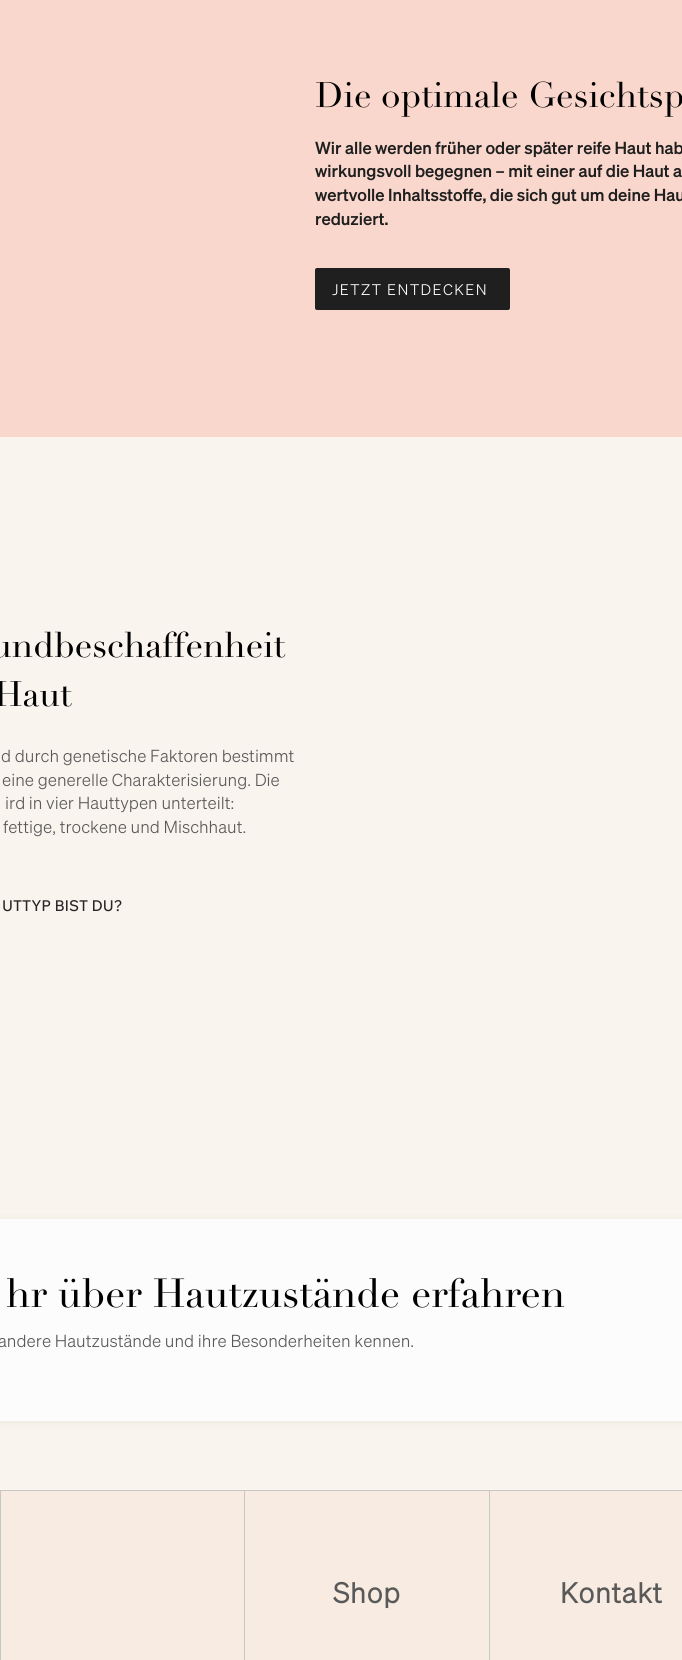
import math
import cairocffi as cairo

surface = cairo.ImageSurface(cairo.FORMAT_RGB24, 682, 1660)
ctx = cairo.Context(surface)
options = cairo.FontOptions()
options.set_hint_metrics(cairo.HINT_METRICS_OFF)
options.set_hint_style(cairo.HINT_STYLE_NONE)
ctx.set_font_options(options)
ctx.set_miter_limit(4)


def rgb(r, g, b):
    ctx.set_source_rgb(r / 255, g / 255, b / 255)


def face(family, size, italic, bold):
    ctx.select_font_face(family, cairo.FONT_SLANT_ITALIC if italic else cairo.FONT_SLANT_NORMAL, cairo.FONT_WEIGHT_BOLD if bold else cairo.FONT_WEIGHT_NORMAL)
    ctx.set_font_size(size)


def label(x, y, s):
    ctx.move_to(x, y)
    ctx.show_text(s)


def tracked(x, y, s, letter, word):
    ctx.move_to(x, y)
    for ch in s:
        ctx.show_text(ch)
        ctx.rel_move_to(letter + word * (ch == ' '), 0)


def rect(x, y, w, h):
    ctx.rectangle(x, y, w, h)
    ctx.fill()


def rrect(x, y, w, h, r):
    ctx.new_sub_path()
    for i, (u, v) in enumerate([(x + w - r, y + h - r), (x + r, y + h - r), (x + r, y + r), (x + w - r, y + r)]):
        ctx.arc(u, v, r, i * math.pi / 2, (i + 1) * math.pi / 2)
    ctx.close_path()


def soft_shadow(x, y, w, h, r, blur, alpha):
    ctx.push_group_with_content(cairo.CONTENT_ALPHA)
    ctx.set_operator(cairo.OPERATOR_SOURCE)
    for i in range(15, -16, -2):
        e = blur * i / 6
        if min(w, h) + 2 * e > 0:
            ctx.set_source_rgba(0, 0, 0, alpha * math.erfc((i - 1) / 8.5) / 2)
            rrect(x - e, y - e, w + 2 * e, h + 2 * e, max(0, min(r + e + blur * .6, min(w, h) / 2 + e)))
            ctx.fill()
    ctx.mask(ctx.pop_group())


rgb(250, 244, 239)
ctx.paint()
rgb(250, 215, 204)
rect(0, 0, 682, 437)
face('Didot', 35, 0, 0)
rgb(0, 0, 0)
label(315, 107, 'Die optimale Gesichtsp')
face('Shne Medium', 17, 0, 0)
rgb(31, 31, 31)
label(315, 154, 'Wir alle werden früher oder später reife Haut hab')
label(315, 177, 'wirkungsvoll begegnen – mit einer auf die Haut a')
label(315, 201, 'wertvolle Inhaltsstoffe, die sich gut um deine Hau')
label(315, 225, 'reduziert.')
rrect(315, 268, 195, 42, 2)
ctx.fill()
face('Shne Light', 15, 0, 0)
rgb(255, 255, 255)
tracked(332, 295, 'JETZT ENTDECKEN', 1.5, 0)
face('Didot', 35, 0, 0)
rgb(0, 0, 0)
label(-9, 657, 'undbeschaffenheit')
label(-6, 706, 'Haut')
face('Shne Light', 17, 0, 0)
rgb(89, 89, 89)
label(1, 762, 'd durch genetische Faktoren bestimmt')
label(2, 786, 'eine generelle Charakterisierung. Die')
label(5, 809, 'ird in vier Hauttypen unterteilt:')
label(3, 833, 'fettige, trockene und Mischhaut.')
face('Wix Madefor Text Medium', 15, 0, 0)
rgb(40, 38, 38)
label(2, 911, 'UTTYP BIST DU?')
rgb(0, 0, 0)
soft_shadow(-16, 1220, 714, 202, 1, 5, 0.06)
rgb(253, 252, 252)
rect(0, 1219, 682, 202)
face('Didot', 40, 0, 0)
rgb(0, 0, 0)
label(6, 1307, 'hr über Hautzustände erfahren')
face('Shne Light', 17, 0, 0)
rgb(89, 89, 89)
label(-2, 1347, 'andere Hautzustände und ihre Besonderheiten kennen.')
rgb(199, 199, 199)
rect(0, 1490, 682, 170)
rgb(247, 235, 226)
rect(1, 1491, 243, 169)
rect(245, 1491, 244, 169)
face('Shne', 28, 0, 1)
rgb(89, 89, 89)
tracked(333, 1603, 'Shop', 0.75, 0)
rgb(247, 235, 226)
rect(490, 1491, 192, 169)
rgb(89, 89, 89)
tracked(560, 1603, 'Kontakt', 0.75, 0)
surface.write_to_png('render.png')
